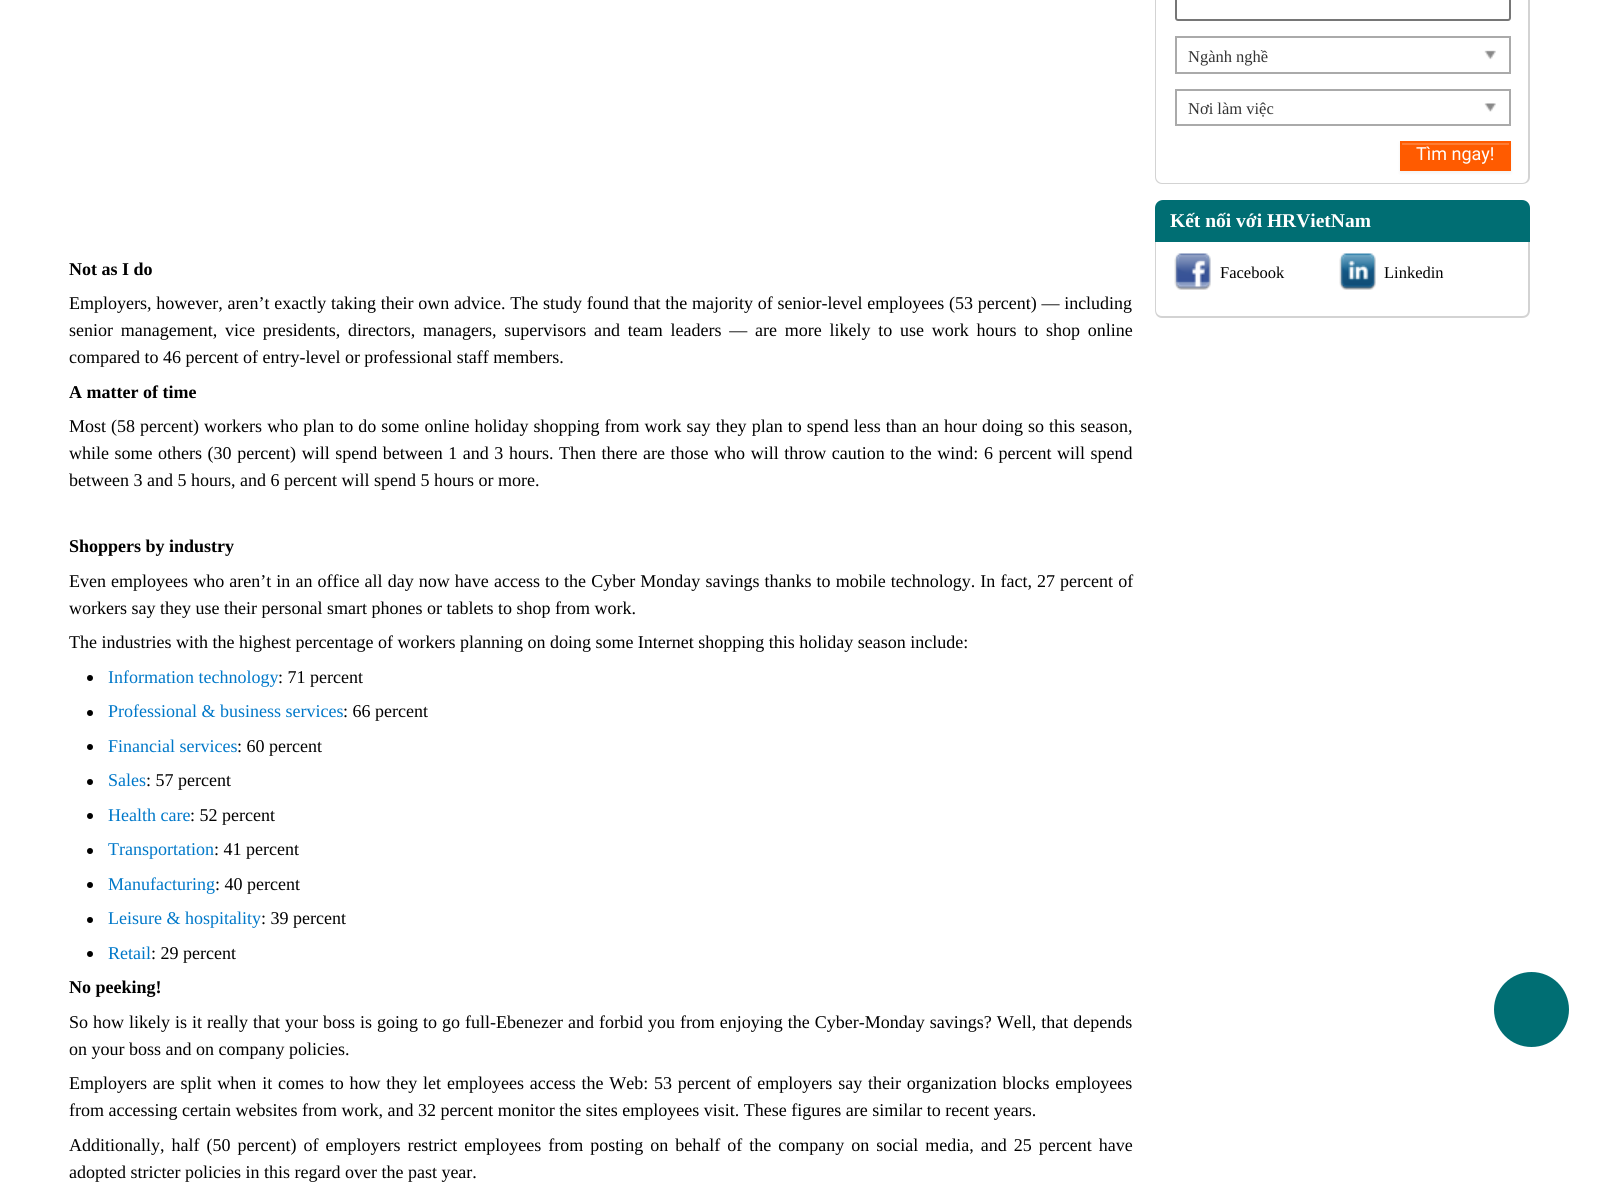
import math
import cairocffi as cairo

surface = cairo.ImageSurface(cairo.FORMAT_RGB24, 1598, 1182)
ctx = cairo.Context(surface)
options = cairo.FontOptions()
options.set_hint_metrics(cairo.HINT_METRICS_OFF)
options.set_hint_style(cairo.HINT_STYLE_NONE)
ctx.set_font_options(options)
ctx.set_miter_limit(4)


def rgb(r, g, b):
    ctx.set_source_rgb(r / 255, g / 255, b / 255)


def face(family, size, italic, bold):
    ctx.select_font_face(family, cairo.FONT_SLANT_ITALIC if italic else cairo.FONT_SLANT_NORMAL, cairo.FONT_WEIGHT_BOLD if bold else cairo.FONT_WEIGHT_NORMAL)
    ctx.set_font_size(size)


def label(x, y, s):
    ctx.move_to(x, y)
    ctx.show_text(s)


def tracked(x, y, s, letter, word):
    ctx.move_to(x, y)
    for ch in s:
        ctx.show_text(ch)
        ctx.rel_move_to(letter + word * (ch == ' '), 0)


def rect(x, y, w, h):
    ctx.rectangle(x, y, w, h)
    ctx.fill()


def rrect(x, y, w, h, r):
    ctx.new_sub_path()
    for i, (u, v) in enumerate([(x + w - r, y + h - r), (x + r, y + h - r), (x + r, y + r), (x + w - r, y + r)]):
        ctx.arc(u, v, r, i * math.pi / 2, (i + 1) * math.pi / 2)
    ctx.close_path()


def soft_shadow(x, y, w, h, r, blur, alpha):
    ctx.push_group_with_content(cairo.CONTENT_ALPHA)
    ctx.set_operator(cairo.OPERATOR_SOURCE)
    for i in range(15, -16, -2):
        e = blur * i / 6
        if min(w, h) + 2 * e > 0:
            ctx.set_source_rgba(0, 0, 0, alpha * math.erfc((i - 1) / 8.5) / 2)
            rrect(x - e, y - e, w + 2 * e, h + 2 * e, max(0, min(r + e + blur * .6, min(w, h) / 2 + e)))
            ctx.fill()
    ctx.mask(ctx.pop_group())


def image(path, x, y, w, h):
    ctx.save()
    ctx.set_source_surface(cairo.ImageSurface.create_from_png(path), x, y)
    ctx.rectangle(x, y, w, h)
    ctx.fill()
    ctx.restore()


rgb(255, 255, 255)
ctx.paint()
rgb(211, 211, 211)
ctx.set_fill_rule(cairo.FILL_RULE_EVEN_ODD)
ctx.new_path()
ctx.move_to(1155, -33)
ctx.line_to(1530, -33)
ctx.line_to(1530, 177)
ctx.curve_to(1530, 181, 1527, 184, 1522, 184)
ctx.line_to(1162, 184)
ctx.curve_to(1158, 184, 1155, 181, 1155, 177)
ctx.close_path()
ctx.move_to(1156, -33)
ctx.line_to(1528, -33)
ctx.line_to(1528, 177)
ctx.curve_to(1528, 180, 1526, 183, 1522, 183)
ctx.line_to(1162, 183)
ctx.curve_to(1159, 183, 1156, 180, 1156, 177)
ctx.close_path()
ctx.fill()
rrect(1176, -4, 334, 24, 2)
rgb(118, 118, 118)
ctx.stroke()
ctx.rectangle(1176, 37, 334, 36)
rgb(170, 170, 170)
ctx.stroke()
face('Liberation Serif', 16.5, 0, 0)
rgb(51, 51, 51)
label(1188, 62, 'Ngành nghề')
image('image0.png', 1484, 50, 12, 10)
ctx.rectangle(1176, 90, 334, 35)
rgb(170, 170, 170)
ctx.stroke()
rgb(51, 51, 51)
label(1188, 114, 'Nơi làm việc')
image('image1.png', 1484, 103, 12, 9)
rgb(0, 0, 0)
soft_shadow(1400, 143, 111, 30, 0, 1.5, 0.05)
rgb(255, 91, 0)
rect(1402, 145, 107, 24)
rgb(255, 124, 51)
rect(1401, 143, 108, 2)
ctx.rectangle(1401, 142, 109, 28)
rgb(255, 91, 0)
ctx.stroke()
face('Roboto', 18, 0, 0)
rgb(255, 255, 255)
label(1416, 160, 'Tìm ngay!')
rgb(0, 110, 115)
ctx.new_path()
ctx.move_to(1163, 200)
ctx.line_to(1522, 200)
ctx.curve_to(1526.5, 200, 1530, 203.5, 1530, 208)
ctx.line_to(1530, 242)
ctx.line_to(1155, 242)
ctx.line_to(1155, 208)
ctx.curve_to(1155, 203.5, 1158.5, 200, 1163, 200)
ctx.close_path()
ctx.fill()
face('Liberation Serif', 19.5, 0, 1)
rgb(255, 255, 255)
label(1170, 227, 'Kết nối với HRVietNam')
rgb(211, 211, 211)
ctx.new_path()
ctx.move_to(1155, 242)
ctx.line_to(1530, 242)
ctx.line_to(1530, 310)
ctx.curve_to(1530, 315, 1527, 318, 1522, 318)
ctx.line_to(1162, 318)
ctx.curve_to(1158, 318, 1155, 315, 1155, 310)
ctx.close_path()
ctx.move_to(1156, 242)
ctx.line_to(1528, 242)
ctx.line_to(1528, 310)
ctx.curve_to(1528, 314, 1526, 316, 1522, 316)
ctx.line_to(1162, 316)
ctx.curve_to(1159, 316, 1156, 314, 1156, 310)
ctx.close_path()
ctx.fill()
image('image2.png', 1174, 253, 37, 37)
face('Liberation Serif', 16.5, 0, 0)
rgb(0, 0, 0)
label(1220, 278, 'Facebook')
image('image3.png', 1339, 253, 37, 37)
label(1384, 278, 'Linkedin')
face('Liberation Serif', 18, 0, 1)
label(69, 275, 'Not as I do')
face('Liberation Serif', 18, 0, 0)
tracked(69, 309, 'Employers, however, aren’t exactly taking their own advice. The study found that the majority of senior-level employees (53 percent) — including', 0, 0.25)
tracked(69, 336, 'senior management, vice presidents, directors, managers, supervisors and team leaders — are more likely to use work hours to shop online', 0, 3.25)
label(69, 363, 'compared to 46 percent of entry-level or professional staff members.')
face('Liberation Serif', 18, 0, 1)
label(69, 398, 'A matter of time')
face('Liberation Serif', 18, 0, 0)
tracked(69, 432, 'Most (58 percent) workers who plan to do some online holiday shopping from work say they plan to spend less than an hour doing so this season,', 0, 0.55)
tracked(69, 459, 'while some others (30 percent) will spend between 1 and 3 hours. Then there are those who will throw caution to the wind: 6 percent will spend', 0, 1.05)
label(69, 486, 'between 3 and 5 hours, and 6 percent will spend 5 hours or more.')
face('Liberation Serif', 18, 0, 1)
label(69, 552, 'Shoppers by industry')
face('Liberation Serif', 18, 0, 0)
tracked(69, 587, 'Even employees who aren’t in an office all day now have access to the Cyber Monday savings thanks to mobile technology. In fact, 27 percent of', 0, 0.6)
label(69, 614, 'workers say they use their personal smart phones or tablets to shop from work.')
label(69, 648, 'The industries with the highest percentage of workers planning on doing some Internet shopping this holiday season include:')
ctx.new_path()
ctx.arc(90, 678, 3, 0, 2 * math.pi)
ctx.fill()
rgb(0, 120, 201)
label(108, 683, 'Information technology')
rgb(0, 0, 0)
label(278, 683, ': 71 percent')
ctx.new_path()
ctx.arc(90, 713, 3, 0, 2 * math.pi)
ctx.fill()
rgb(0, 120, 201)
label(108, 717, 'Professional & business services')
rgb(0, 0, 0)
label(343, 717, ': 66 percent')
ctx.new_path()
ctx.arc(90, 747, 3, 0, 2 * math.pi)
ctx.fill()
rgb(0, 120, 201)
label(108, 752, 'Financial services')
rgb(0, 0, 0)
label(237, 752, ': 60 percent')
ctx.new_path()
ctx.arc(90, 782, 3, 0, 2 * math.pi)
ctx.fill()
rgb(0, 120, 201)
label(108, 786, 'Sales')
rgb(0, 0, 0)
label(146, 786, ': 57 percent')
ctx.new_path()
ctx.arc(90, 816, 3, 0, 2 * math.pi)
ctx.fill()
rgb(0, 120, 201)
label(108, 821, 'Health care')
rgb(0, 0, 0)
label(190, 821, ': 52 percent')
ctx.new_path()
ctx.arc(90, 851, 3, 0, 2 * math.pi)
ctx.fill()
rgb(0, 120, 201)
label(108, 855, 'Transportation')
rgb(0, 0, 0)
label(214, 855, ': 41 percent')
ctx.new_path()
ctx.arc(90, 885, 3, 0, 2 * math.pi)
ctx.fill()
rgb(0, 120, 201)
label(108, 890, 'Manufacturing')
rgb(0, 0, 0)
label(215, 890, ': 40 percent')
ctx.new_path()
ctx.arc(90, 920, 3, 0, 2 * math.pi)
ctx.fill()
rgb(0, 120, 201)
label(108, 924, 'Leisure & hospitality')
rgb(0, 0, 0)
label(261, 924, ': 39 percent')
ctx.new_path()
ctx.arc(90, 954, 3, 0, 2 * math.pi)
ctx.fill()
rgb(0, 120, 201)
label(108, 959, 'Retail')
rgb(0, 0, 0)
label(151, 959, ': 29 percent')
face('Liberation Serif', 18, 0, 1)
label(69, 993, 'No peeking!')
face('Liberation Serif', 18, 0, 0)
tracked(69, 1028, 'So how likely is it really that your boss is going to go full-Ebenezer and forbid you from enjoying the Cyber-Monday savings? Well, that depends', 0, 0.5)
label(69, 1055, 'on your boss and on company policies.')
tracked(69, 1089, 'Employers are split when it comes to how they let employees access the Web: 53 percent of employers say their organization blocks employees', 0, 1.3)
label(69, 1116, 'from accessing certain websites from work, and 32 percent monitor the sites employees visit. These figures are similar to recent years.')
tracked(69, 1151, 'Additionally, half (50 percent) of employers restrict employees from posting on behalf of the company on social media, and 25 percent have', 0, 2.5)
label(69, 1178, 'adopted stricter policies in this regard over the past year.')
rgb(0, 110, 115)
ctx.new_path()
ctx.arc(1531.5, 1009.5, 37.5, 0, 2 * math.pi)
ctx.fill()
surface.write_to_png('render.png')
